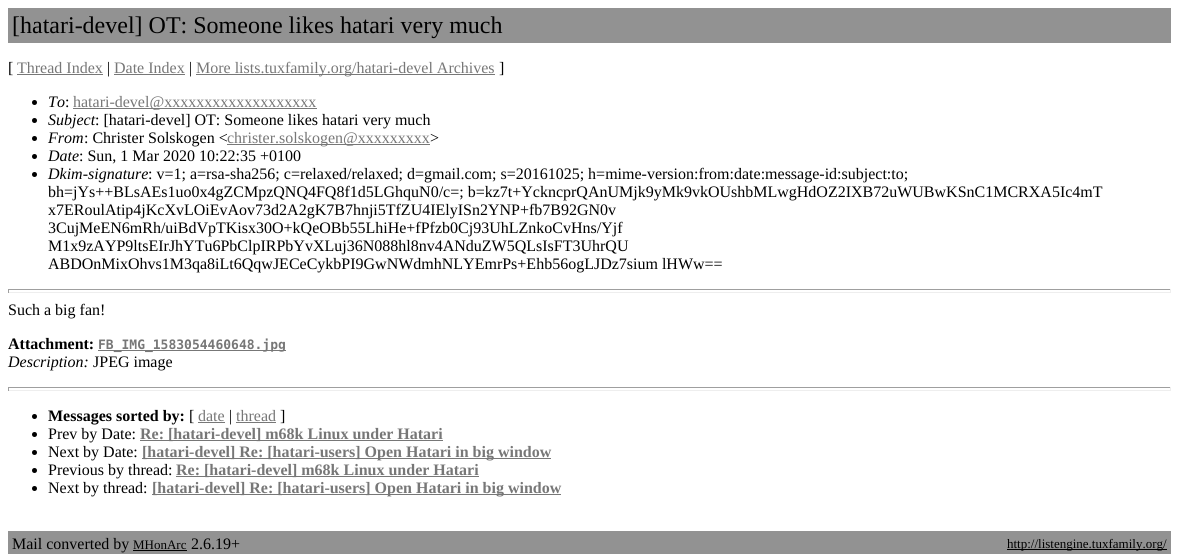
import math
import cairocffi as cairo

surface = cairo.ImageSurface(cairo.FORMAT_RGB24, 1179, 554)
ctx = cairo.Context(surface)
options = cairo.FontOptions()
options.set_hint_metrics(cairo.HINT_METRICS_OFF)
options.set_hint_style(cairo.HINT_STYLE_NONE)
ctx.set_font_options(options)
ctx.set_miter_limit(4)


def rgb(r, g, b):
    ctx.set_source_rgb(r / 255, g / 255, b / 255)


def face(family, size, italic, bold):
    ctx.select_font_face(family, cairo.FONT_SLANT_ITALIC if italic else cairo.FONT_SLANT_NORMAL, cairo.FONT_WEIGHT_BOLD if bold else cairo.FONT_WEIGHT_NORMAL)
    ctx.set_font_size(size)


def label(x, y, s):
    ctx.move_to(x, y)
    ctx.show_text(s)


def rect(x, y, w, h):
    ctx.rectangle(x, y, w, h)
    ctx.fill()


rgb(255, 255, 255)
ctx.paint()
rgb(146, 146, 146)
rect(8, 8, 1163, 35)
face('Liberation Serif', 24, 0, 0)
rgb(0, 0, 0)
label(12, 33, '[hatari-devel] OT: Someone likes hatari very much')
face('Liberation Serif', 16, 0, 0)
label(8, 73, '[')
rgb(119, 119, 119)
label(17, 73, 'Thread Index')
rect(17, 74, 86, 1)
rgb(0, 0, 0)
label(107, 73, '|')
rgb(119, 119, 119)
label(114, 73, 'Date Index')
rect(114, 74, 71, 1)
rgb(0, 0, 0)
label(189, 73, '|')
rgb(119, 119, 119)
rect(196, 74, 299, 1)
label(196, 73, 'More lists.tuxfamily.org/hatari-devel Archives')
rgb(0, 0, 0)
label(499, 73, ']')
ctx.new_path()
ctx.arc(34.5, 102.5, 2.5, 0, 2 * math.pi)
ctx.fill()
face('Liberation Serif', 16, 1, 0)
label(48, 107, 'To')
face('Liberation Serif', 16, 0, 0)
label(65, 107, ':')
rgb(119, 119, 119)
rect(73, 108, 244, 1)
label(73, 107, 'hatari-devel@xxxxxxxxxxxxxxxxxxx')
rgb(0, 0, 0)
ctx.new_path()
ctx.arc(34.5, 120.5, 2.5, 0, 2 * math.pi)
ctx.fill()
face('Liberation Serif', 16, 1, 0)
label(48, 125, 'Subject')
face('Liberation Serif', 16, 0, 0)
label(95, 125, ': [hatari-devel] OT: Someone likes hatari very much')
ctx.new_path()
ctx.arc(34.5, 138.5, 2.5, 0, 2 * math.pi)
ctx.fill()
face('Liberation Serif', 16, 1, 0)
label(48, 143, 'From')
face('Liberation Serif', 16, 0, 0)
label(84, 143, ': Christer Solskogen <')
rgb(119, 119, 119)
rect(227, 144, 203, 1)
label(227, 143, 'christer.solskogen@xxxxxxxxx')
rgb(0, 0, 0)
label(430, 143, '>')
ctx.new_path()
ctx.arc(34.5, 156.5, 2.5, 0, 2 * math.pi)
ctx.fill()
face('Liberation Serif', 16, 1, 0)
label(48, 161, 'Date')
face('Liberation Serif', 16, 0, 0)
label(79, 161, ': Sun, 1 Mar 2020 10:22:35 +0100')
ctx.new_path()
ctx.arc(34.5, 174.5, 2.5, 0, 2 * math.pi)
ctx.fill()
face('Liberation Serif', 16, 1, 0)
label(48, 179, 'Dkim-signature')
face('Liberation Serif', 16, 0, 0)
label(148, 179, ': v=1; a=rsa-sha256; c=relaxed/relaxed; d=gmail.com; s=20161025; h=mime-version:from:date:message-id:subject:to;')
label(48, 197, 'bh=jYs++BLsAEs1uo0x4gZCMpzQNQ4FQ8f1d5LGhquN0/c=; b=kz7t+YckncprQAnUMjk9yMk9vkOUshbMLwgHdOZ2IXB72uWUBwKSnC1MCRXA5Ic4mT')
label(48, 215, 'x7ERoulAtip4jKcXvLOiEvAov73d2A2gK7B7hnji5TfZU4IElyISn2YNP+fb7B92GN0v')
label(48, 233, '3CujMeEN6mRh/uiBdVpTKisx30O+kQeOBb55LhiHe+fPfzb0Cj93UhLZnkoCvHns/Yjf')
label(48, 251, 'M1x9zAYP9ltsEIrJhYTu6PbClpIRPbYvXLuj36N088hl8nv4ANduZW5QLsIsFT3UhrQU')
label(48, 269, 'ABDOnMixOhvs1M3qa8iLt6QqwJECeCykbPI9GwNWdmhNLYEmrPs+Ehb56ogLJDz7sium lHWw==')
rgb(159, 159, 159)
rect(8, 289, 1163, 1)
rgb(238, 238, 238)
rect(1170, 289, 1, 4)
rect(8, 292, 1163, 1)
rgb(159, 159, 159)
rect(8, 289, 1, 4)
rgb(0, 0, 0)
label(8, 315, 'Such a big fan!')
face('Liberation Serif', 16, 0, 1)
label(8, 349, 'Attachment:')
rgb(119, 119, 119)
rect(98, 350, 188, 1)
face('DejaVu Sans Mono', 13, 0, 1)
label(98, 349, 'FB_IMG_1583054460648.jpg')
face('Liberation Serif', 16, 1, 0)
rgb(0, 0, 0)
label(8, 367, 'Description:')
face('Liberation Serif', 16, 0, 0)
label(93, 367, 'JPEG image')
rgb(159, 159, 159)
rect(8, 387, 1163, 1)
rgb(238, 238, 238)
rect(1170, 387, 1, 4)
rect(8, 390, 1163, 1)
rgb(159, 159, 159)
rect(8, 387, 1, 4)
rgb(0, 0, 0)
ctx.new_path()
ctx.arc(34.5, 416.5, 2.5, 0, 2 * math.pi)
ctx.fill()
face('Liberation Serif', 16, 0, 1)
label(48, 421, 'Messages sorted by:')
face('Liberation Serif', 16, 0, 0)
label(189, 421, '[')
rgb(119, 119, 119)
label(198, 421, 'date')
rect(198, 422, 27, 1)
rgb(0, 0, 0)
label(229, 421, '|')
rgb(119, 119, 119)
label(236, 421, 'thread')
rect(236, 422, 40, 1)
rgb(0, 0, 0)
label(280, 421, ']')
ctx.new_path()
ctx.arc(34.5, 434.5, 2.5, 0, 2 * math.pi)
ctx.fill()
label(48, 439, 'Prev by Date:')
rgb(119, 119, 119)
rect(140, 440, 303, 1)
face('Liberation Serif', 16, 0, 1)
label(140, 439, 'Re: [hatari-devel] m68k Linux under Hatari')
rgb(0, 0, 0)
ctx.new_path()
ctx.arc(34.5, 452.5, 2.5, 0, 2 * math.pi)
ctx.fill()
face('Liberation Serif', 16, 0, 0)
label(48, 457, 'Next by Date:')
rgb(119, 119, 119)
rect(142, 458, 409, 1)
face('Liberation Serif', 16, 0, 1)
label(142, 457, '[hatari-devel] Re: [hatari-users] Open Hatari in big window')
rgb(0, 0, 0)
ctx.new_path()
ctx.arc(34.5, 470.5, 2.5, 0, 2 * math.pi)
ctx.fill()
face('Liberation Serif', 16, 0, 0)
label(48, 475, 'Previous by thread:')
rgb(119, 119, 119)
rect(176, 476, 303, 1)
face('Liberation Serif', 16, 0, 1)
label(176, 475, 'Re: [hatari-devel] m68k Linux under Hatari')
rgb(0, 0, 0)
ctx.new_path()
ctx.arc(34.5, 488.5, 2.5, 0, 2 * math.pi)
ctx.fill()
face('Liberation Serif', 16, 0, 0)
label(48, 493, 'Next by thread:')
rgb(119, 119, 119)
rect(152, 494, 409, 1)
face('Liberation Serif', 16, 0, 1)
label(152, 493, '[hatari-devel] Re: [hatari-users] Open Hatari in big window')
rgb(146, 146, 146)
rect(8, 531, 1163, 23)
face('Liberation Serif', 16, 0, 0)
rgb(0, 0, 0)
label(12, 549, 'Mail converted by')
face('Liberation Serif', 13, 0, 0)
label(133, 549, 'MHonArc')
rect(133, 550, 54, 1)
face('Liberation Serif', 16, 0, 0)
label(191, 549, '2.6.19+')
rect(1007, 549, 160, 1)
face('Liberation Serif', 13, 0, 0)
label(1007, 548, 'http://listengine.tuxfamily.org/')
surface.write_to_png('render.png')
